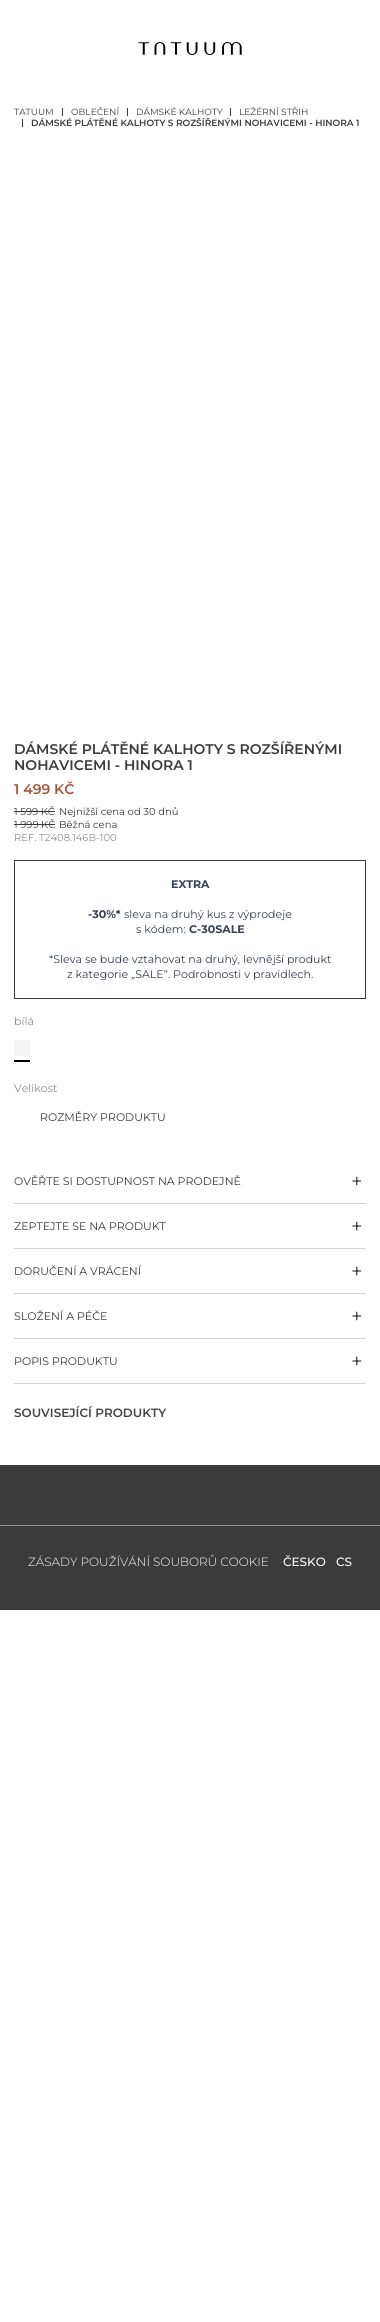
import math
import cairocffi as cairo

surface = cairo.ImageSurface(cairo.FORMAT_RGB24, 380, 2322)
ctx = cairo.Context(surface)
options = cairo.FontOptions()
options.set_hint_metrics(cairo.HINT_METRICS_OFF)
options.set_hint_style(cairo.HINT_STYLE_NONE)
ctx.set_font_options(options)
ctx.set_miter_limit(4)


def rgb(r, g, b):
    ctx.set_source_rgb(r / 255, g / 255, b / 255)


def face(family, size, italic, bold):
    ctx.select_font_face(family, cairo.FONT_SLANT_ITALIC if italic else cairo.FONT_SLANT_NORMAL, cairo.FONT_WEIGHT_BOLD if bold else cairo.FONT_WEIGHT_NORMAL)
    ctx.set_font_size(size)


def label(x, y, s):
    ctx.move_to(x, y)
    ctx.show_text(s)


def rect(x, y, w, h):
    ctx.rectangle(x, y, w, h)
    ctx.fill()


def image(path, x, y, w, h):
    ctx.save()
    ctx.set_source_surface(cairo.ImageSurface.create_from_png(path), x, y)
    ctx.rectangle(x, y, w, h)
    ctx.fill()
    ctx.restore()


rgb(255, 255, 255)
ctx.paint()
image('image0.png', 138, 42, 104, 13)
face('Montserrat Thin', 9, 0, 0)
rgb(59, 59, 59)
label(14, 115, 'TATUUM')
rect(62, 108, 1, 8)
label(71, 115, 'OBLEČENÍ')
rect(127, 108, 1, 8)
label(136, 115, 'DÁMSKÉ KALHOTY')
rect(230, 108, 1, 8)
label(239, 115, 'LEŽÉRNÍ STŘIH')
rect(22, 119, 1, 8)
face('Montserrat SemiBold', 9, 0, 0)
label(31, 126, 'DÁMSKÉ PLÁTĚNÉ KALHOTY S ROZŠÍŘENÝMI NOHAVICEMI - HINORA 1')
face('Montserrat SemiBold', 14, 0, 0)
label(14, 754, 'DÁMSKÉ PLÁTĚNÉ KALHOTY S ROZŠÍŘENÝMI')
label(14, 770, 'NOHAVICEMI - HINORA 1')
rgb(167, 87, 64)
label(14, 794, '1 499 KČ')
face('Montserrat Thin', 10, 0, 0)
rgb(59, 59, 59)
label(14, 815, '1 599 KČ')
rect(14, 811, 41, 1)
label(59, 815, 'Nejnižší cena od 30 dnů')
label(14, 828, '1 999 KČ')
rect(14, 824, 41, 1)
label(59, 828, 'Běžná cena')
rgb(142, 142, 142)
label(14, 841, 'REF. T2408.146B-100')
ctx.rectangle(14.5, 860.5, 351, 138)
rgb(59, 59, 59)
ctx.set_line_width(1)
ctx.stroke()
face('Montserrat', 11, 0, 1)
rgb(55, 65, 81)
label(171, 888, 'EXTRA')
label(88, 918, '-30%*')
face('Montserrat Thin', 11, 0, 0)
label(124, 918, 'sleva na druhý kus z výprodeje')
label(136, 933, 's kódem:')
face('Montserrat', 11, 0, 1)
label(189, 933, 'C-30SALE')
face('Montserrat Thin', 11, 0, 0)
label(49, 963, '*Sleva se bude vztahovat na druhý, levnější produkt')
label(67, 978, 'z kategorie „SALE“. Podrobnosti v pravidlech.')
rgb(142, 142, 142)
label(14, 1025, 'bílá')
rgb(0, 0, 0)
rect(14, 1060, 16, 2)
rgb(245, 245, 245)
rect(14, 1040, 16, 16)
rgb(142, 142, 142)
label(14, 1092, 'Velikost')
rgb(59, 59, 59)
label(40, 1121, 'ROZMĚRY PRODUKTU')
rgb(209, 213, 219)
rect(14, 1203, 352, 1)
rgb(59, 59, 59)
label(14, 1185, 'OVĚŘTE SI DOSTUPNOST NA PRODEJNĚ')
face('Montserrat Thin', 20, 0, 0)
label(351, 1188, '+')
rgb(209, 213, 219)
rect(14, 1248, 352, 1)
face('Montserrat Thin', 11, 0, 0)
rgb(59, 59, 59)
label(14, 1230, 'ZEPTEJTE SE NA PRODUKT')
face('Montserrat Thin', 20, 0, 0)
label(351, 1233, '+')
rgb(209, 213, 219)
rect(14, 1293, 352, 1)
face('Montserrat Thin', 11, 0, 0)
rgb(59, 59, 59)
label(14, 1275, 'DORUČENÍ A VRÁCENÍ')
face('Montserrat Thin', 20, 0, 0)
label(351, 1278, '+')
rgb(209, 213, 219)
rect(14, 1338, 352, 1)
face('Montserrat Thin', 11, 0, 0)
rgb(59, 59, 59)
label(14, 1320, 'SLOŽENÍ A PÉČE')
face('Montserrat Thin', 20, 0, 0)
label(351, 1323, '+')
rgb(209, 213, 219)
rect(14, 1383, 352, 1)
face('Montserrat Thin', 11, 0, 0)
rgb(59, 59, 59)
label(14, 1365, 'POPIS PRODUKTU')
face('Montserrat Thin', 20, 0, 0)
label(351, 1368, '+')
face('Montserrat SemiBold', 12, 0, 0)
rgb(68, 68, 68)
label(14, 1417, 'SOUVISEJÍCÍ PRODUKTY')
rgb(59, 59, 59)
rect(0, 1465, 380, 60)
rect(0, 1526, 380, 84)
rgb(142, 142, 142)
rect(0, 1525, 380, 1)
face('Montserrat Light', 12, 0, 0)
rgb(255, 255, 255)
label(28, 1566, 'ZÁSADY POUŽÍVÁNÍ SOUBORŮ COOKIE')
face('Montserrat Medium', 12, 0, 0)
label(283, 1566, 'ČESKO')
label(336, 1566, 'CS')
surface.write_to_png('render.png')
